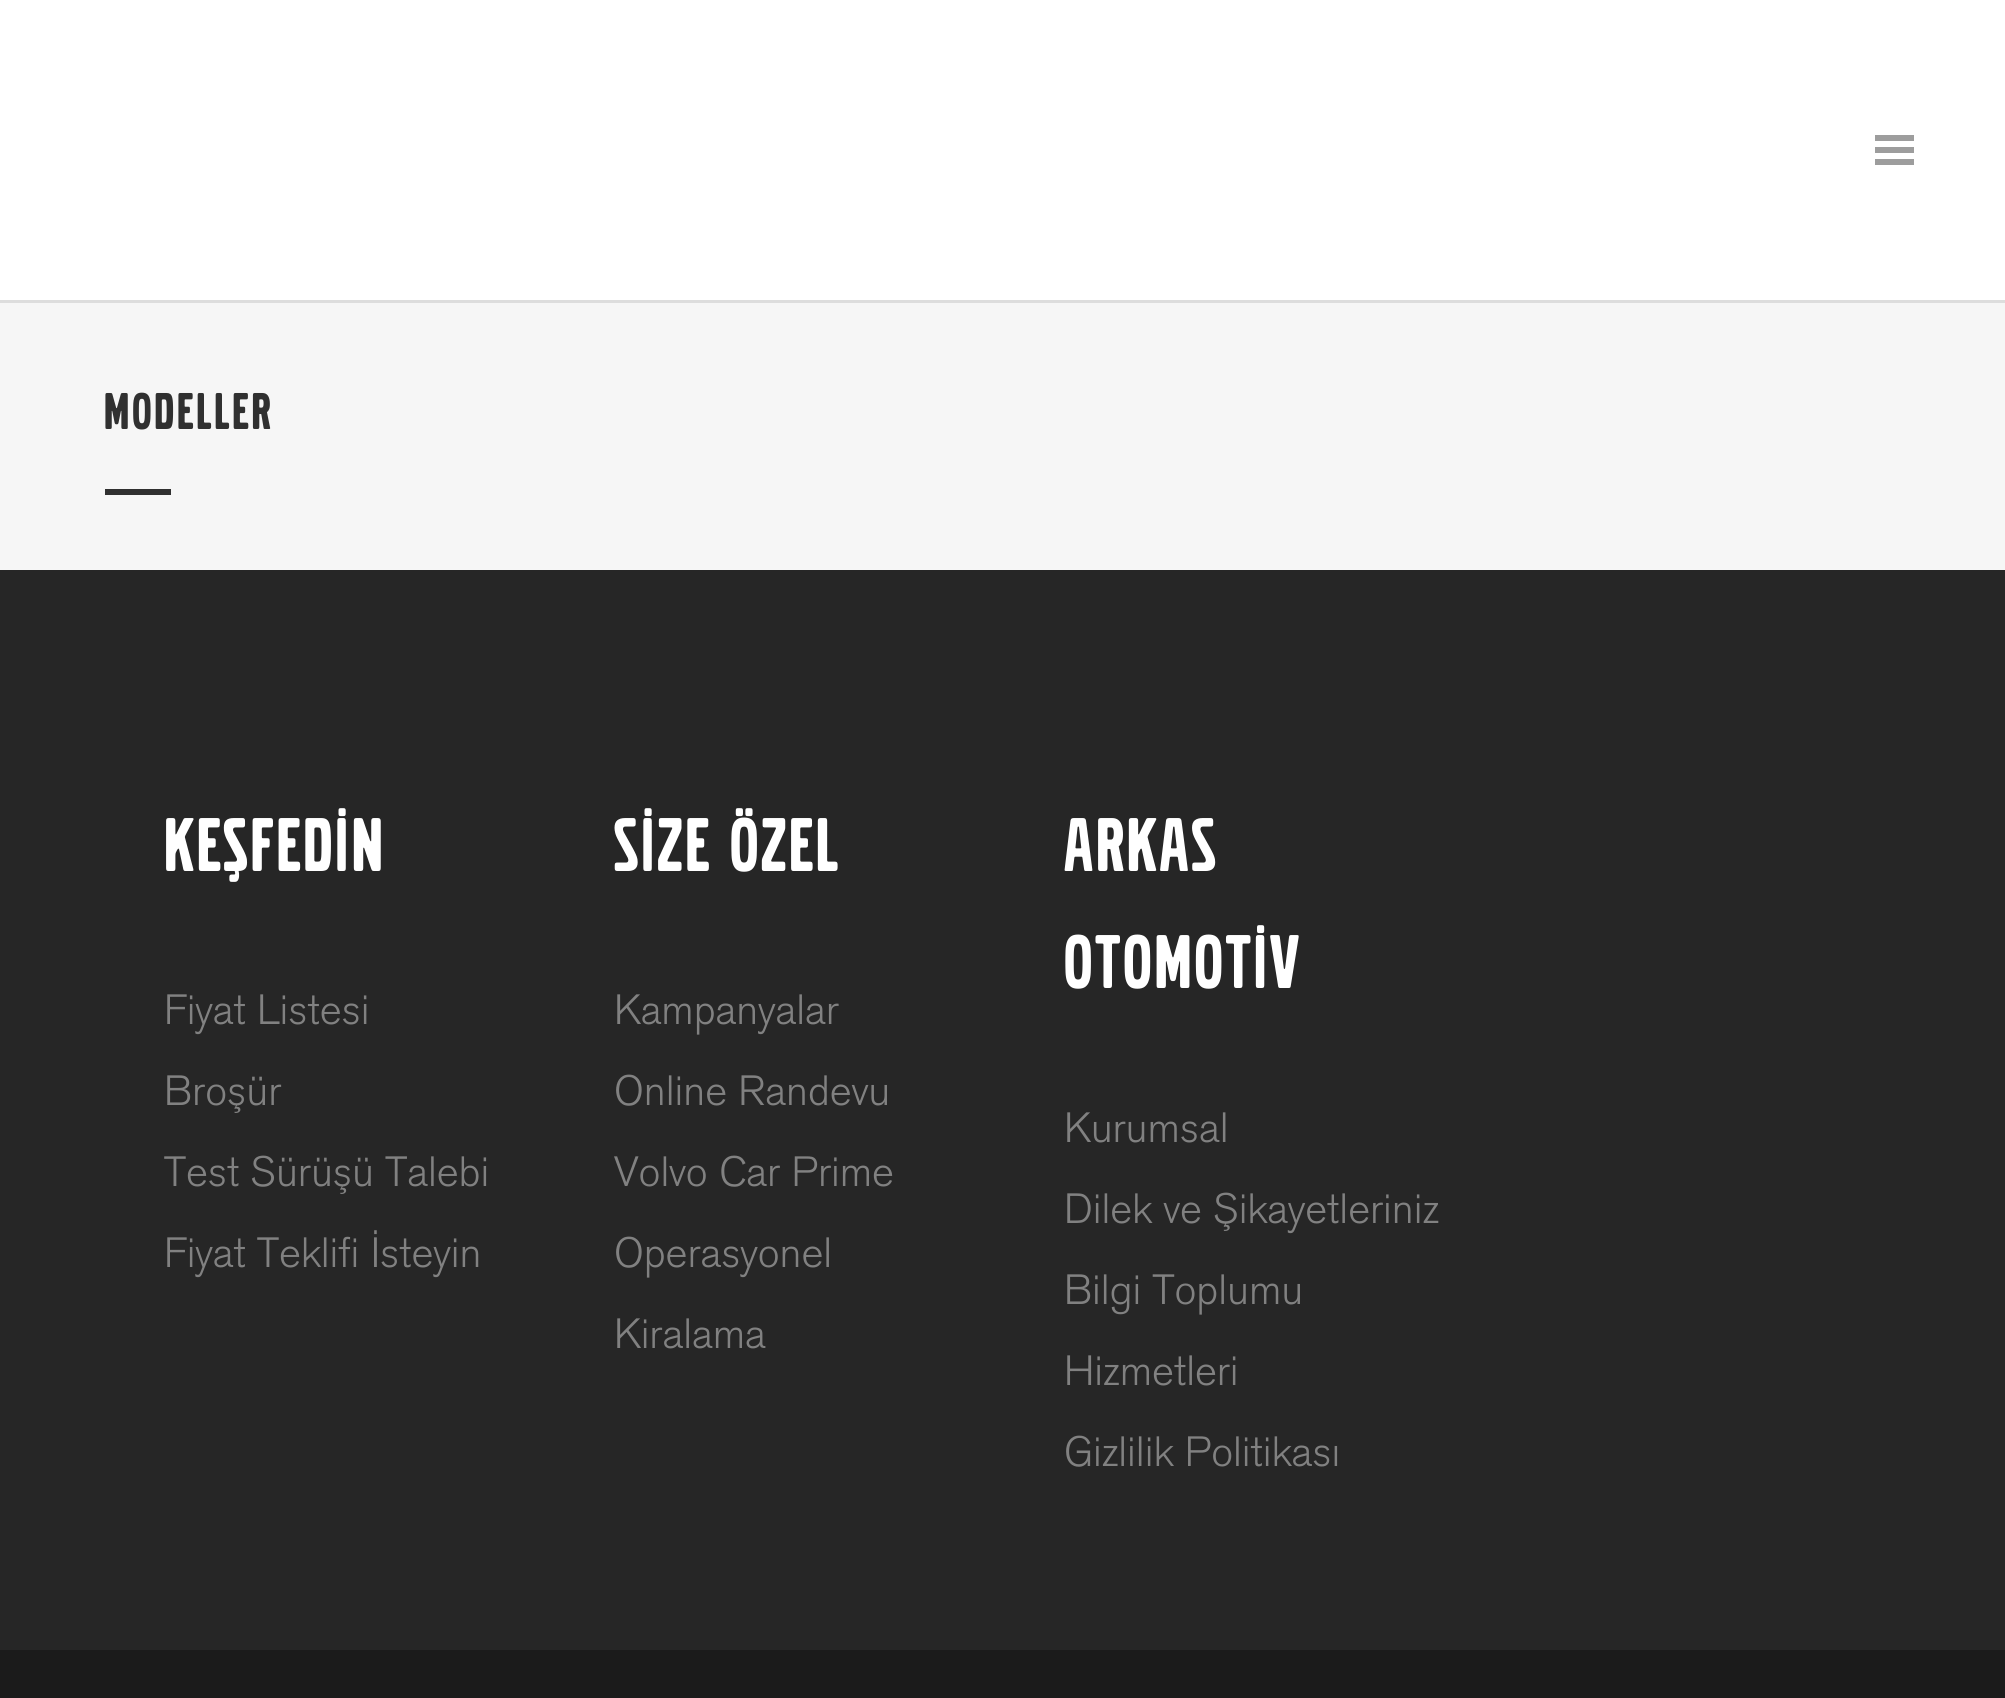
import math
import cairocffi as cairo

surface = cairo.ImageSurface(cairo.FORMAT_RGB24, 2005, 1698)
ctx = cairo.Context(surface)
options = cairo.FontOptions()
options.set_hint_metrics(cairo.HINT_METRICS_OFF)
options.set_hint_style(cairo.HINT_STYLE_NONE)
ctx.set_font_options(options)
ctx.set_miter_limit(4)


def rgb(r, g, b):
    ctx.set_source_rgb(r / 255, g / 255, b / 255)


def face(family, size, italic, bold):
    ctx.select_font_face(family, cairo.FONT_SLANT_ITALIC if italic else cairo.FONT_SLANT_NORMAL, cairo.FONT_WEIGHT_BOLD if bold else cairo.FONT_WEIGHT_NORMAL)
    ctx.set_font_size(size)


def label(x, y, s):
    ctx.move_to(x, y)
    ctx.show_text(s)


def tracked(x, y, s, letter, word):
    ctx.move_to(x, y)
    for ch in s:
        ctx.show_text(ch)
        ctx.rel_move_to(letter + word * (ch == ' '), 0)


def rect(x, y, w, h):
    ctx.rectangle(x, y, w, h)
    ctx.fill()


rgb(246, 246, 246)
ctx.paint()
rgb(221, 221, 221)
rect(0, 300, 2005, 3)
rgb(255, 255, 255)
rect(0, 0, 2005, 300)
rgb(157, 157, 157)
rect(1875, 147, 39, 6)
rect(1875, 135, 39, 6)
rect(1875, 159, 39, 6)
face('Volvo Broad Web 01 Medium', 51, 0, 0)
rgb(48, 48, 48)
tracked(104, 429, 'MODELLER', 3, 0)
rect(105, 489, 66, 6)
rgb(38, 38, 38)
rect(0, 570, 2005, 1080)
face('Volvo Broad Web 01 Medium', 75, 0, 0)
rgb(255, 255, 255)
tracked(164, 871, 'KEŞFEDİN', 3, 0)
face('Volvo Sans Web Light', 42, 0, 0)
rgb(129, 129, 129)
label(164, 1024, 'Fiyat Listesi')
label(164, 1105, 'Broşür')
label(164, 1186, 'Test Sürüşü Talebi')
label(164, 1267, 'Fiyat Teklifi İsteyin')
face('Volvo Broad Web 01 Medium', 75, 0, 0)
rgb(255, 255, 255)
tracked(614, 871, 'SİZE ÖZEL', 3, 0)
face('Volvo Sans Web Light', 42, 0, 0)
rgb(129, 129, 129)
label(614, 1024, 'Kampanyalar')
label(614, 1105, 'Online Randevu')
label(614, 1186, 'Volvo Car Prime')
label(614, 1267, 'Operasyonel')
label(614, 1348, 'Kiralama')
face('Volvo Broad Web 01 Medium', 75, 0, 0)
rgb(255, 255, 255)
tracked(1064, 871, 'ARKAS', 3, 0)
tracked(1064, 988, 'OTOMOTİV', 3, 0)
face('Volvo Sans Web Light', 42, 0, 0)
rgb(129, 129, 129)
label(1064, 1142, 'Kurumsal')
label(1064, 1223, 'Dilek ve Şikayetleriniz')
label(1064, 1304, 'Bilgi Toplumu')
label(1064, 1385, 'Hizmetleri')
label(1064, 1466, 'Gizlilik Politikası')
rgb(27, 27, 27)
rect(0, 1650, 2005, 48)
surface.write_to_png('render.png')
